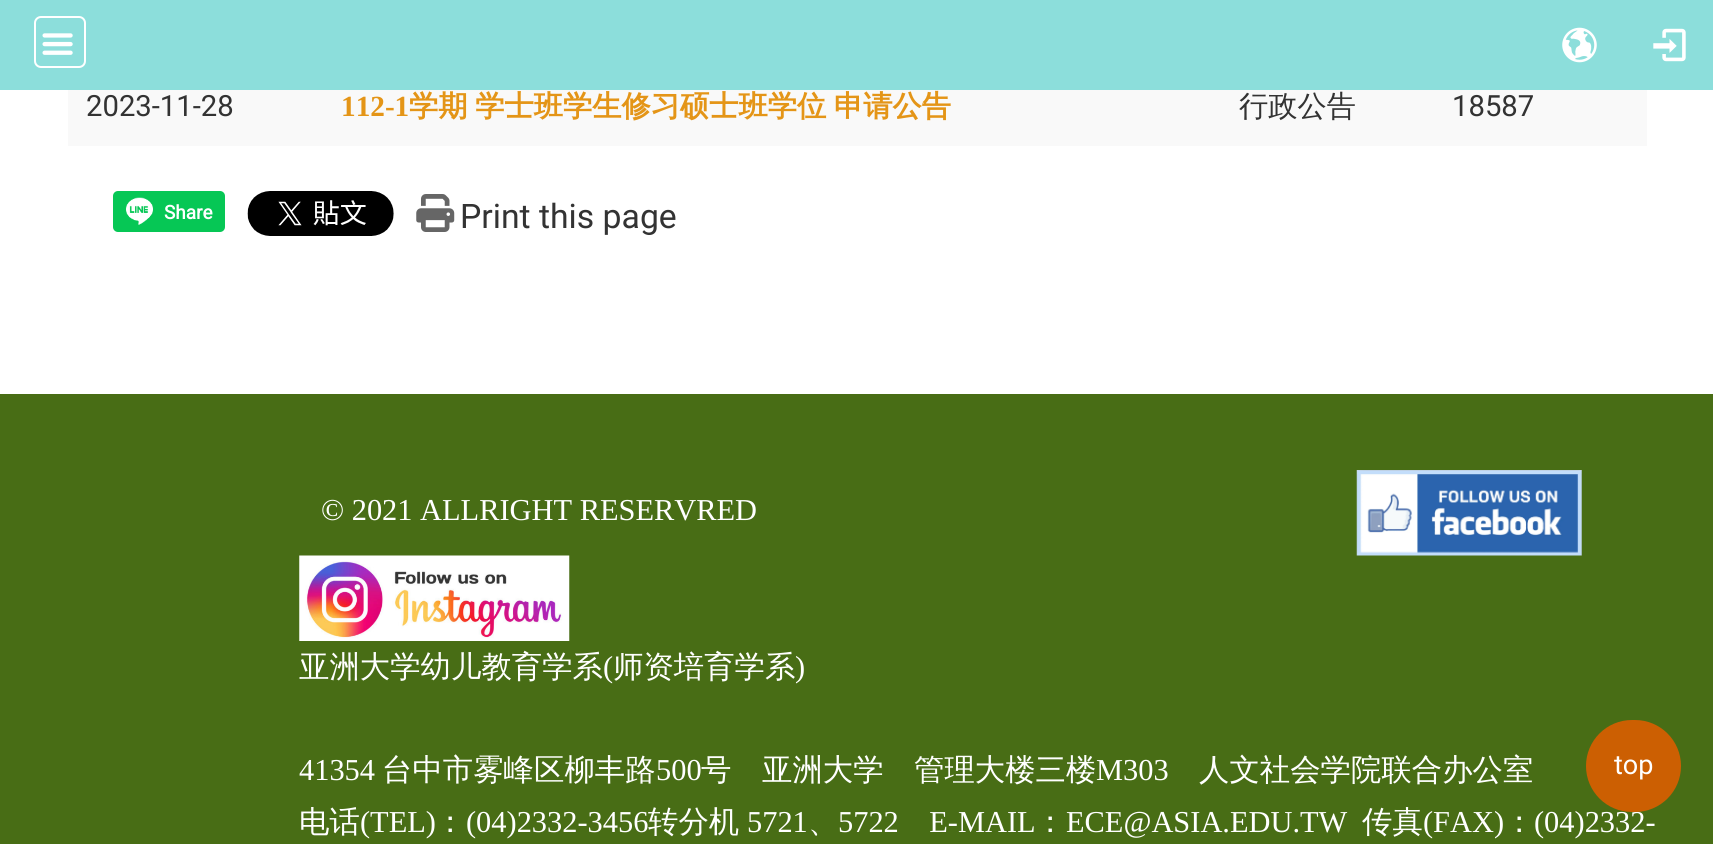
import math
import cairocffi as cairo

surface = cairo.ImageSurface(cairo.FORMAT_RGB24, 1713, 844)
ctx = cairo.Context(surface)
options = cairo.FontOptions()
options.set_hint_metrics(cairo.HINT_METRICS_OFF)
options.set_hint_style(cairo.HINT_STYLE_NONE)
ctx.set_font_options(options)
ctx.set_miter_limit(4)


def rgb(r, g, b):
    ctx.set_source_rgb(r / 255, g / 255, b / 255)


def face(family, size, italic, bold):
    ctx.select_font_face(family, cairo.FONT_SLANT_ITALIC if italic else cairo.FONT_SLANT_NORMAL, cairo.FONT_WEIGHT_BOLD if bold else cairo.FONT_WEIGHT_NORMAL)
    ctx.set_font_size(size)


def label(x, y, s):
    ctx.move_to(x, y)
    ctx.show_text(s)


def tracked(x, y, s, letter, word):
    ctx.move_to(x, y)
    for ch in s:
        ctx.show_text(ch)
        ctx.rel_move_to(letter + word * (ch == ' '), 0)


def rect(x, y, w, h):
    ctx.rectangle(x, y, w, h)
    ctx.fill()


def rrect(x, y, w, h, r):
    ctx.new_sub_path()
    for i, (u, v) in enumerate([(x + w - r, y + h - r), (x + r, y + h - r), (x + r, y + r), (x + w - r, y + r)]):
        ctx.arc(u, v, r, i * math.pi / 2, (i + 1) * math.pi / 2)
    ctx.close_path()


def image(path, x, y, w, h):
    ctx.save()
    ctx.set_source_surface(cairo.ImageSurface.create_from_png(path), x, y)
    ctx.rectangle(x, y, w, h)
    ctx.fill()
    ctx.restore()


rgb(255, 255, 255)
ctx.paint()
rgb(140, 222, 219)
rect(0, 0, 1713, 90)
rrect(35, 17, 50, 50, 6)
rgb(255, 255, 255)
ctx.stroke()
image('image0.png', 42, 33, 31, 22)
image('image1.png', 1562, 27, 35, 36)
image('image2.png', 1653, 28, 33, 34)
rgb(249, 249, 249)
rect(68, 90, 1579, 56)
face('Roboto', 29.25, 0, 0)
rgb(51, 51, 51)
label(86, 116, '2023-11-28')
face('Liberation Serif', 29.25, 0, 1)
rgb(228, 149, 23)
label(341, 116, '112-1')
face('WenQuanYi Zen Hei', 29.25, 0, 1)
tracked(409, 116, '学期 学士班学生修习硕士班学位 申请公告', 0, -1)
face('WenQuanYi Zen Hei Medium', 29.25, 0, 0)
rgb(51, 51, 51)
label(1239, 116, '行政公告')
face('Roboto', 29.25, 0, 0)
label(1452, 116, '18587')
rgb(6, 199, 85)
rrect(113, 191, 112, 41, 5)
ctx.fill()
image('image3.png', 126, 197, 27, 28)
face('Roboto', 19, 0, 1)
rgb(255, 255, 255)
label(164, 219, 'Share')
image('image4.png', 247, 191, 147, 45)
image('image5.png', 416, 194, 39, 38)
face('Roboto', 33.75, 0, 0)
rgb(51, 51, 51)
label(460, 228, 'Print this page')
rgb(72, 109, 21)
rect(0, 394, 1713, 450)
face('Liberation Serif', 30.4, 0, 0)
rgb(255, 255, 255)
label(321, 520, '© 2021 ALLRIGHT RESERVRED')
image('image6.png', 1356, 470, 226, 86)
image('image7.png', 299, 555, 271, 86)
face('WenQuanYi Zen Hei Medium', 30.4, 0, 0)
label(299, 677, '亚洲大学幼儿教育学系')
face('Liberation Serif', 30.4, 0, 0)
label(603, 677, '(')
face('WenQuanYi Zen Hei Medium', 30.4, 0, 0)
label(613, 677, '师资培育学系')
face('Liberation Serif', 30.4, 0, 0)
label(795, 677, ')')
label(299, 780, '41354')
face('WenQuanYi Zen Hei Medium', 30.4, 0, 0)
label(382, 780, '台中市雾峰区柳丰路')
face('Liberation Serif', 30.4, 0, 0)
label(656, 780, '500')
face('WenQuanYi Zen Hei Medium', 30.4, 0, 0)
label(701, 780, '号')
label(762, 780, '亚洲大学')
label(914, 780, '管理大楼三楼')
face('Liberation Serif', 30.4, 0, 0)
label(1096, 780, 'M303')
face('WenQuanYi Zen Hei Medium', 30.4, 0, 0)
label(1199, 780, '人文社会学院联合办公室')
label(299, 832, '电话')
face('Liberation Serif', 30.4, 0, 0)
label(360, 832, '(TEL)')
face('WenQuanYi Zen Hei Medium', 30.4, 0, 0)
label(435, 832, '：')
face('Liberation Serif', 30.4, 0, 0)
label(466, 832, '(04)2332-3456')
face('WenQuanYi Zen Hei Medium', 30.4, 0, 0)
label(648, 832, '转分机')
face('Liberation Serif', 30.4, 0, 0)
label(747, 832, '5721')
face('WenQuanYi Zen Hei Medium', 30.4, 0, 0)
label(808, 832, '、')
face('Liberation Serif', 30.4, 0, 0)
label(838, 832, '5722    E-MAIL')
face('WenQuanYi Zen Hei Medium', 30.4, 0, 0)
label(1035, 832, '：')
face('Liberation Serif', 30.4, 0, 0)
label(1066, 832, 'ECE@ASIA.EDU.TW')
face('WenQuanYi Zen Hei Medium', 30.4, 0, 0)
label(1362, 832, '传真')
face('Liberation Serif', 30.4, 0, 0)
label(1423, 832, '(FAX)')
face('WenQuanYi Zen Hei Medium', 30.4, 0, 0)
label(1504, 832, '：')
face('Liberation Serif', 30.4, 0, 0)
label(1534, 832, '(04)2332-')
ctx.set_source_rgba(0.859, 0.365, 0, 0.9)
rrect(1586, 720, 95, 92, 46)
ctx.fill()
face('Roboto', 27, 0, 0)
rgb(255, 255, 255)
label(1614, 774, 'top')
surface.write_to_png('render.png')
